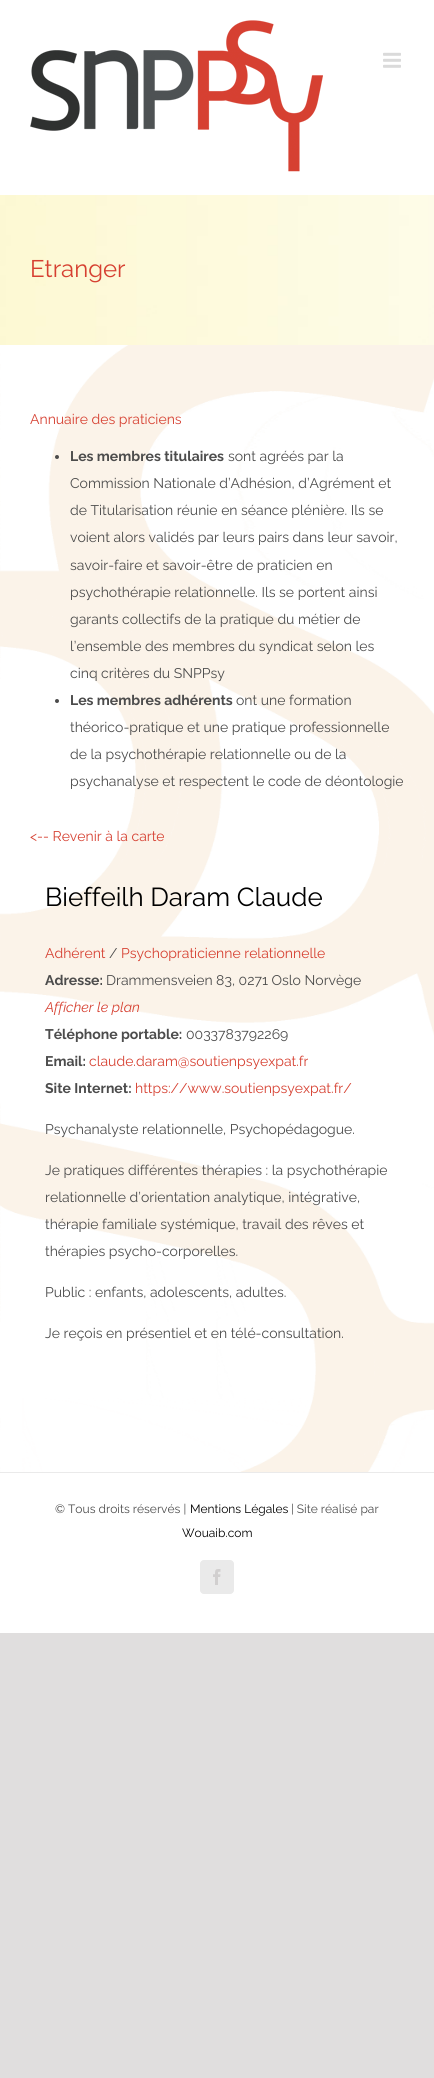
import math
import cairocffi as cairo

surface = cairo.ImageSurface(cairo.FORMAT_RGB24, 434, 2078)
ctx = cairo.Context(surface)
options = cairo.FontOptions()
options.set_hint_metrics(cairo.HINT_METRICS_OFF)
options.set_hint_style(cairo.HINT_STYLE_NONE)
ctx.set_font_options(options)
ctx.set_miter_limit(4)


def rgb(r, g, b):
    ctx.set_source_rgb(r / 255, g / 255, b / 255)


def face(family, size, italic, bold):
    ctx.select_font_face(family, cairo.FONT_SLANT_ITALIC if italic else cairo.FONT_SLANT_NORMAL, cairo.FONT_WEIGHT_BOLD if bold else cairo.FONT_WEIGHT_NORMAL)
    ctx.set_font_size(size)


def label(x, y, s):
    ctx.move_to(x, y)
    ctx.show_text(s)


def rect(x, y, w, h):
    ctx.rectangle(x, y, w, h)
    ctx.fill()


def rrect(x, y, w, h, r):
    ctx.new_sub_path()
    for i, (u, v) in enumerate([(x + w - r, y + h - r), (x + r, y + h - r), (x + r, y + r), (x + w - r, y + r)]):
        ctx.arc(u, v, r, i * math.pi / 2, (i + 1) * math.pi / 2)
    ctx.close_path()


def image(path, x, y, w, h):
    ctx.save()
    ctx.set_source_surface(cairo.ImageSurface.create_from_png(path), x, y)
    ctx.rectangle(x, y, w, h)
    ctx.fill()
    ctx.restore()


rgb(224, 222, 222)
ctx.paint()
rgb(255, 255, 255)
rect(0, 0, 434, 1633)
image('image0.png', 30, 20, 293, 152)
image('image1.png', 383, 52, 18, 16)
image('image2.png', 0, 195, 434, 150)
face('Raleway', 24, 0, 0)
rgb(214, 64, 49)
label(30, 277, 'Etranger')
image('image3.png', 0, 345, 434, 1127)
face('Raleway', 14, 0, 0)
label(30, 424, 'Annuaire des praticiens')
rgb(76, 76, 76)
ctx.new_path()
ctx.arc(57, 457, 2, 0, 2 * math.pi)
ctx.fill()
face('Raleway', 14, 0, 1)
label(70, 461, 'Les membres titulaires')
face('Raleway', 14, 0, 0)
label(228, 461, 'sont agréés par la')
label(70, 488, 'Commission Nationale d’Adhésion, d’Agrément et')
label(70, 515, 'de Titularisation réunie en séance plénière. Ils se')
label(70, 542, 'voient alors validés par leurs pairs dans leur savoir,')
label(70, 570, 'savoir-faire et savoir-être de praticien en')
label(70, 597, 'psychothérapie relationnelle. Ils se portent ainsi')
label(70, 624, 'garants collectifs de la pratique du métier de')
label(70, 651, 'l’ensemble des membres du syndicat selon les')
label(70, 678, 'cinq critères du SNPPsy')
ctx.new_path()
ctx.arc(57, 701, 2, 0, 2 * math.pi)
ctx.fill()
face('Raleway', 14, 0, 1)
label(70, 705, 'Les membres adhérents')
face('Raleway', 14, 0, 0)
label(236, 705, 'ont une formation')
label(70, 732, 'théorico-pratique et une pratique professionnelle')
label(70, 759, 'de la psychothérapie relationnelle ou de la')
label(70, 786, 'psychanalyse et respectent le code de déontologie')
rgb(214, 64, 49)
label(30, 841, '<-- Revenir à la carte')
face('Raleway', 26, 0, 0)
rgb(0, 0, 0)
label(45, 906, 'Bieffeilh Daram Claude')
face('Raleway', 14, 0, 0)
rgb(214, 64, 49)
label(45, 958, 'Adhérent')
rgb(76, 76, 76)
label(109, 958, '/')
rgb(214, 64, 49)
label(121, 958, 'Psychopraticienne relationnelle')
face('Raleway', 14, 0, 1)
rgb(76, 76, 76)
label(45, 985, 'Adresse:')
face('Raleway', 14, 0, 0)
label(106, 985, 'Drammensveien 83, 0271 Oslo Norvège')
face('Raleway', 14, 1, 0)
rgb(214, 64, 49)
label(45, 1012, 'Afficher le plan')
face('Raleway', 14, 0, 1)
rgb(76, 76, 76)
label(45, 1039, 'Téléphone portable:')
face('Raleway', 14, 0, 0)
label(186, 1039, '0033783792269')
face('Raleway', 14, 0, 1)
label(45, 1066, 'Email:')
face('Raleway', 14, 0, 0)
rgb(214, 64, 49)
label(89, 1066, 'claude.daram@soutienpsyexpat.fr')
face('Raleway', 14, 0, 1)
rgb(76, 76, 76)
label(45, 1093, 'Site Internet:')
face('Raleway', 14, 0, 0)
rgb(214, 64, 49)
label(135, 1093, 'https://www.soutienpsyexpat.fr/')
rgb(76, 76, 76)
label(45, 1134, 'Psychanalyste relationnelle, Psychopédagogue.')
label(45, 1175, 'Je pratiques différentes thérapies : la psychothérapie')
label(45, 1202, 'relationnelle d’orientation analytique, intégrative,')
label(45, 1229, 'thérapie familiale systémique, travail des rêves et')
label(45, 1256, 'thérapies psycho-corporelles.')
label(45, 1297, 'Public : enfants, adolescents, adultes.')
label(45, 1338, 'Je reçois en présentiel et en télé-consultation.')
rgb(234, 234, 234)
rect(0, 1472, 434, 1)
face('Raleway', 12, 0, 0)
rgb(76, 76, 76)
label(55, 1513, '© Tous droits réservés |')
rgb(0, 0, 0)
label(190, 1513, 'Mentions Légales')
rgb(76, 76, 76)
label(291, 1513, '| Site réalisé par')
rgb(0, 0, 0)
label(182, 1537, 'Wouaib.com')
rgb(234, 234, 234)
rrect(200.5, 1560.5, 33, 33, 3.5)
ctx.fill_preserve()
ctx.set_line_width(1)
ctx.stroke()
image('image4.png', 213, 1569, 8, 16)
surface.write_to_png('render.png')
